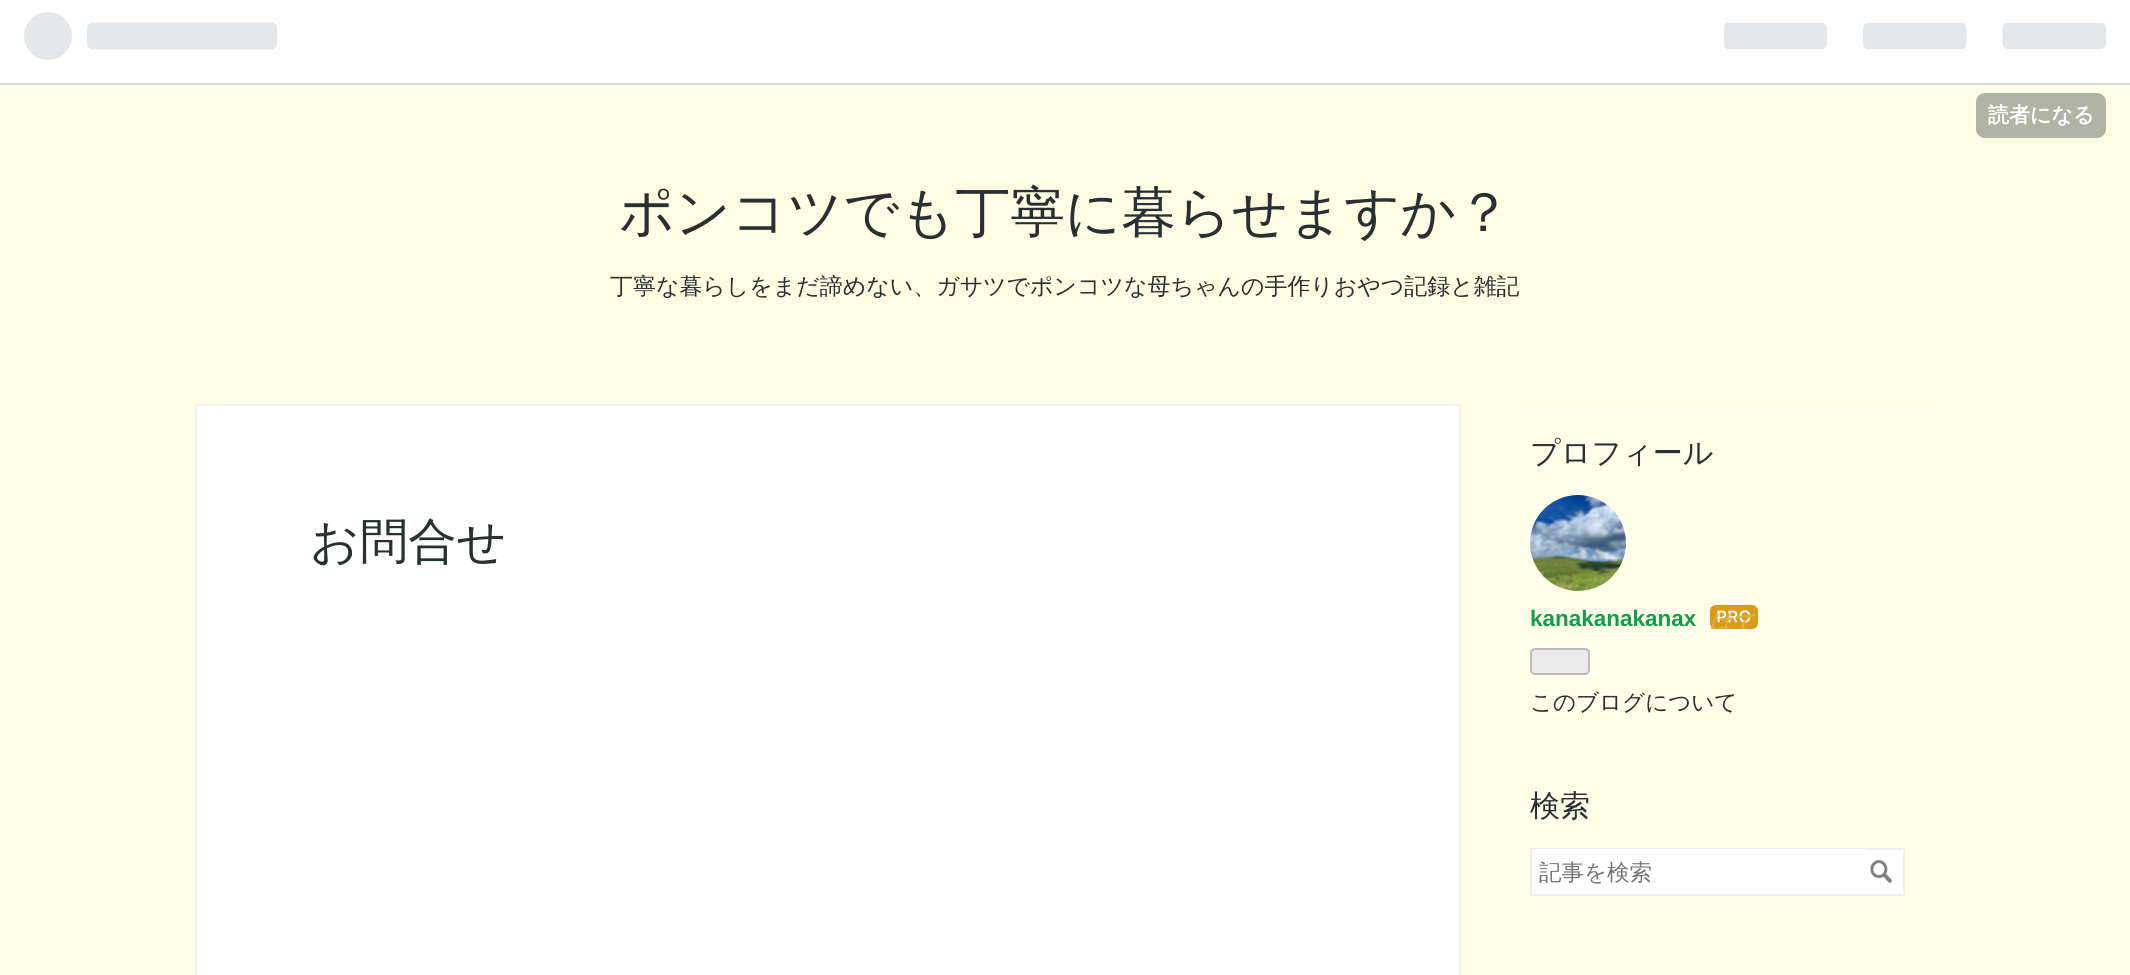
import math
import cairocffi as cairo

surface = cairo.ImageSurface(cairo.FORMAT_RGB24, 2130, 975)
ctx = cairo.Context(surface)
options = cairo.FontOptions()
options.set_hint_metrics(cairo.HINT_METRICS_OFF)
options.set_hint_style(cairo.HINT_STYLE_NONE)
ctx.set_font_options(options)
ctx.set_miter_limit(4)


def rgb(r, g, b):
    ctx.set_source_rgb(r / 255, g / 255, b / 255)


def face(family, size, italic, bold):
    ctx.select_font_face(family, cairo.FONT_SLANT_ITALIC if italic else cairo.FONT_SLANT_NORMAL, cairo.FONT_WEIGHT_BOLD if bold else cairo.FONT_WEIGHT_NORMAL)
    ctx.set_font_size(size)


def label(x, y, s):
    ctx.move_to(x, y)
    ctx.show_text(s)


def rect(x, y, w, h):
    ctx.rectangle(x, y, w, h)
    ctx.fill()


def rrect(x, y, w, h, r):
    ctx.new_sub_path()
    for i, (u, v) in enumerate([(x + w - r, y + h - r), (x + r, y + h - r), (x + r, y + r), (x + w - r, y + r)]):
        ctx.arc(u, v, r, i * math.pi / 2, (i + 1) * math.pi / 2)
    ctx.close_path()


def image(path, x, y, w, h):
    ctx.save()
    ctx.set_source_surface(cairo.ImageSurface.create_from_png(path), x, y)
    ctx.rectangle(x, y, w, h)
    ctx.fill()
    ctx.restore()


rgb(255, 254, 228)
ctx.paint()
rgb(255, 255, 255)
rect(0, 0, 2130, 83)
rgb(210, 216, 221)
rect(0, 83, 2130, 2)
image('image0.png', 24, 12, 254, 48)
image('image1.png', 1724, 23, 382, 27)
rgb(177, 179, 164)
rrect(1976, 93, 130, 45, 9)
ctx.fill()
face('WenQuanYi Zen Hei', 21, 0, 1)
rgb(255, 255, 255)
label(1988, 122, '読者になる')
face('WenQuanYi Zen Hei Medium', 54.8, 0, 0)
rgb(41, 48, 48)
label(619, 231, 'ポンコツでも丁寧に暮らせますか？')
face('WenQuanYi Zen Hei Medium', 22.95, 0, 0)
label(610, 294, '丁寧な暮らしをまだ諦めない、ガサツでポンコツな母ちゃんの手作りおやつ記録と雑記')
rgb(255, 255, 255)
ctx.rectangle(196, 405, 1264, 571)
ctx.fill_preserve()
rgb(240, 241, 241)
ctx.stroke()
face('WenQuanYi Zen Hei Medium', 48.5, 0, 0)
rgb(41, 48, 48)
label(310, 558, 'お問合せ')
rgb(255, 255, 233)
rect(1500, 404, 435, 571)
face('WenQuanYi Zen Hei Medium', 30, 0, 0)
rgb(41, 48, 48)
label(1530, 463, 'プロフィール')
image('image2.png', 1530, 495, 96, 96)
face('Liberation Sans', 22.5, 0, 1)
rgb(17, 158, 77)
label(1530, 626, 'kanakanakanax')
image('image3.png', 1710, 605, 48, 24)
ctx.save()
ctx.rectangle(1710, 605, 48, 24)
ctx.clip()
face('WenQuanYi Zen Hei', 22.5, 1, 1)
rgb(226, 174, 68)
label(1709, 630, 'はて')
ctx.restore()
rgb(235, 235, 235)
rrect(1531, 649, 58, 25, 4)
ctx.fill_preserve()
rgb(187, 187, 187)
ctx.stroke()
face('WenQuanYi Zen Hei Medium', 22.5, 0, 0)
rgb(41, 48, 48)
label(1530, 710, 'このブログについて')
face('WenQuanYi Zen Hei Medium', 30, 0, 0)
label(1530, 816, '検索')
rgb(255, 255, 255)
rect(1866, 850, 37, 44)
ctx.rectangle(1531, 849, 373, 46)
rgb(238, 238, 238)
ctx.stroke()
rgb(255, 255, 255)
rect(1532, 849, 334, 45)
face('WenQuanYi Zen Hei Medium', 22.5, 0, 0)
rgb(117, 117, 117)
label(1539, 880, '記事を検索')
image('image4.png', 1870, 860, 22, 23)
surface.write_to_png('render.png')
